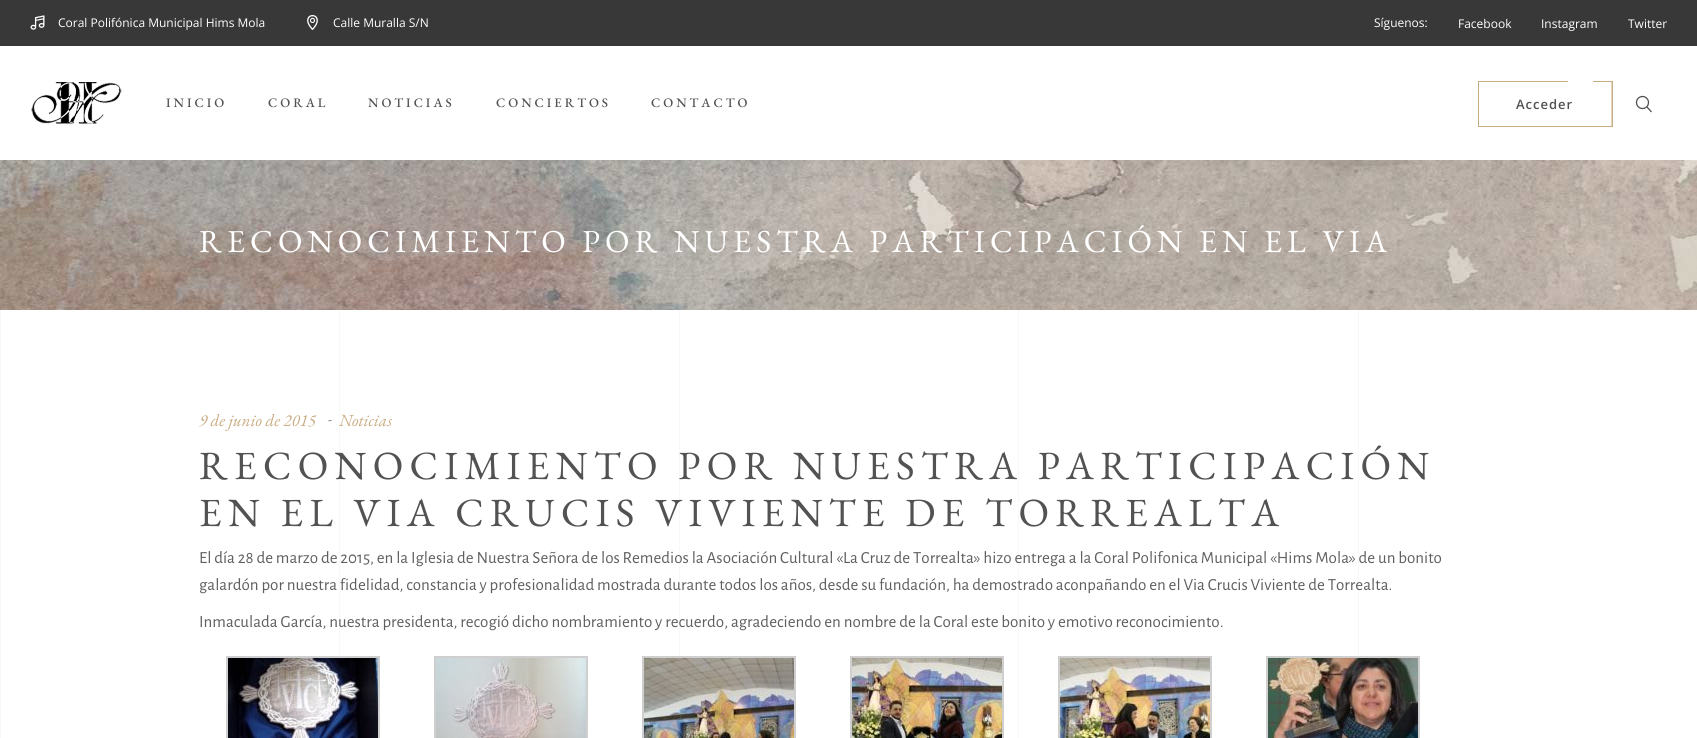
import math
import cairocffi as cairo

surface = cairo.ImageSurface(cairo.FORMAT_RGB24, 1697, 738)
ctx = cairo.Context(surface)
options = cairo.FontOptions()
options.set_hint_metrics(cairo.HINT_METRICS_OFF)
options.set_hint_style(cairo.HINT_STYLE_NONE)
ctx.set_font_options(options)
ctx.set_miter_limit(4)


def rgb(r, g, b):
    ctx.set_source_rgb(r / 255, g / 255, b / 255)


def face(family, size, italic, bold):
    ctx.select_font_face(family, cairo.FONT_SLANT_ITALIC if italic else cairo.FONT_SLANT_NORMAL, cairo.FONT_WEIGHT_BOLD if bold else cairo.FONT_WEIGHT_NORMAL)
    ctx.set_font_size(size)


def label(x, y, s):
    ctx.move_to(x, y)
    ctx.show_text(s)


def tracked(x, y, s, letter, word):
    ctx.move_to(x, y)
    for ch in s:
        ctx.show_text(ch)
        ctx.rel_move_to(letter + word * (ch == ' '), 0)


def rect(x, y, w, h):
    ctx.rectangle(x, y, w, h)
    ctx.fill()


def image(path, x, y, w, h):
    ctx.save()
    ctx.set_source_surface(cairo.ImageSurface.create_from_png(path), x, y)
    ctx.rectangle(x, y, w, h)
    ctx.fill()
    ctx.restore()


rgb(255, 255, 255)
ctx.paint()
rgb(56, 56, 56)
rect(0, 0, 1697, 46)
image('image0.png', 30, 15, 15, 15)
face('Open Sans', 12, 0, 0)
rgb(255, 255, 255)
label(58, 27, 'Coral Polifónica Municipal Hims Mola')
image('image1.png', 307, 15, 11, 15)
label(333, 27, 'Calle Muralla S/N')
label(1374, 27, 'Síguenos:')
label(1458, 28, 'Facebook')
label(1541, 28, 'Instagram')
label(1628, 28, 'Twitter')
image('image2.png', 31, 82, 91, 42)
face('EB Garamond Medium', 13, 0, 0)
rgb(82, 82, 82)
tracked(166, 107, 'INICIO', 3, 0)
tracked(268, 107, 'CORAL', 3, 0)
tracked(368, 107, 'NOTICIAS', 3, 0)
tracked(496, 107, 'CONCIERTOS', 3, 0)
tracked(651, 107, 'CONTACTO', 3, 0)
face('Open Sans SemiBold', 13, 0, 0)
tracked(1516, 109, 'Acceder', 1, 0)
ctx.save()
ctx.rectangle(1478, 81, 135, 46)
ctx.clip()
ctx.new_path()
ctx.move_to(1478, 81)
ctx.line_to(1568, 81)
ctx.move_to(1593, 81)
ctx.line_to(1612.5, 81)
ctx.line_to(1612.5, 127)
ctx.line_to(1478, 127)
ctx.line_to(1478, 81)
rgb(201, 171, 129)
ctx.stroke()
ctx.restore()
ctx.arc(1642.5, 102.5, 6, 0, 2 * math.pi)
ctx.set_line_width(1.3)
ctx.stroke()
ctx.new_path()
ctx.move_to(1651.5, 112)
ctx.line_to(1647, 107)
ctx.stroke()
image('image3.png', 0, 160, 1697, 150)
face('EB Garamond', 32, 0, 0)
rgb(255, 255, 255)
tracked(199, 252, 'RECONOCIMIENTO POR NUESTRA PARTICIPACIÓN EN EL VIA', 5.1, 0)
rgb(248, 248, 248)
rect(0, 310, 1, 428)
rect(339, 310, 1, 346)
rect(679, 310, 1, 346)
rect(1018, 310, 1, 428)
rect(1358, 310, 1, 346)
face('EB Garamond', 17, 1, 0)
rgb(201, 171, 129)
label(199, 426, '9 de junio de 2015')
face('Alegreya Sans', 13, 0, 0)
rgb(95, 95, 95)
label(328, 424, '-')
face('EB Garamond', 17, 1, 0)
rgb(201, 171, 129)
label(339, 426, 'Noticias')
face('EB Garamond', 40, 0, 0)
rgb(82, 82, 82)
tracked(199, 479, 'RECONOCIMIENTO POR NUESTRA PARTICIPACIÓN', 6.4, 0)
tracked(199, 526, 'EN EL VIA CRUCIS VIVIENTE DE TORREALTA', 6.4, 0)
face('Alegreya Sans', 17, 0, 0)
rgb(95, 95, 95)
label(199, 563, 'El día 28 de marzo de 2015, en la Iglesia de Nuestra Señora de los Remedios la Asociación Cultural «La Cruz de Torrealta» hizo entrega a la Coral Polifonica Municipal «Hims Mola» de un bonito')
label(199, 590, 'galardón por nuestra fidelidad, constancia y profesionalidad mostrada durante todos los años, desde su fundación, ha demostrado aconpañando en el Via Crucis Viviente de Torrealta.')
label(199, 627, 'Inmaculada García, nuestra presidenta, recogió dicho nombramiento y recuerdo, agradeciendo en nombre de la Coral este bonito y emotivo reconocimiento.')
ctx.rectangle(227, 657, 152, 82)
rgb(207, 207, 207)
ctx.set_line_width(2)
ctx.stroke()
image('image4.png', 228, 658, 150, 80)
ctx.rectangle(435, 657, 152, 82)
ctx.stroke()
image('image5.png', 436, 658, 150, 80)
ctx.rectangle(643, 657, 152, 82)
ctx.stroke()
image('image6.png', 644, 658, 150, 80)
ctx.rectangle(851, 657, 152, 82)
ctx.stroke()
image('image7.png', 852, 658, 150, 80)
ctx.rectangle(1059, 657, 152, 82)
ctx.stroke()
image('image8.png', 1060, 658, 150, 80)
ctx.rectangle(1267, 657, 152, 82)
ctx.stroke()
image('image9.png', 1268, 658, 150, 80)
surface.write_to_png('render.png')
